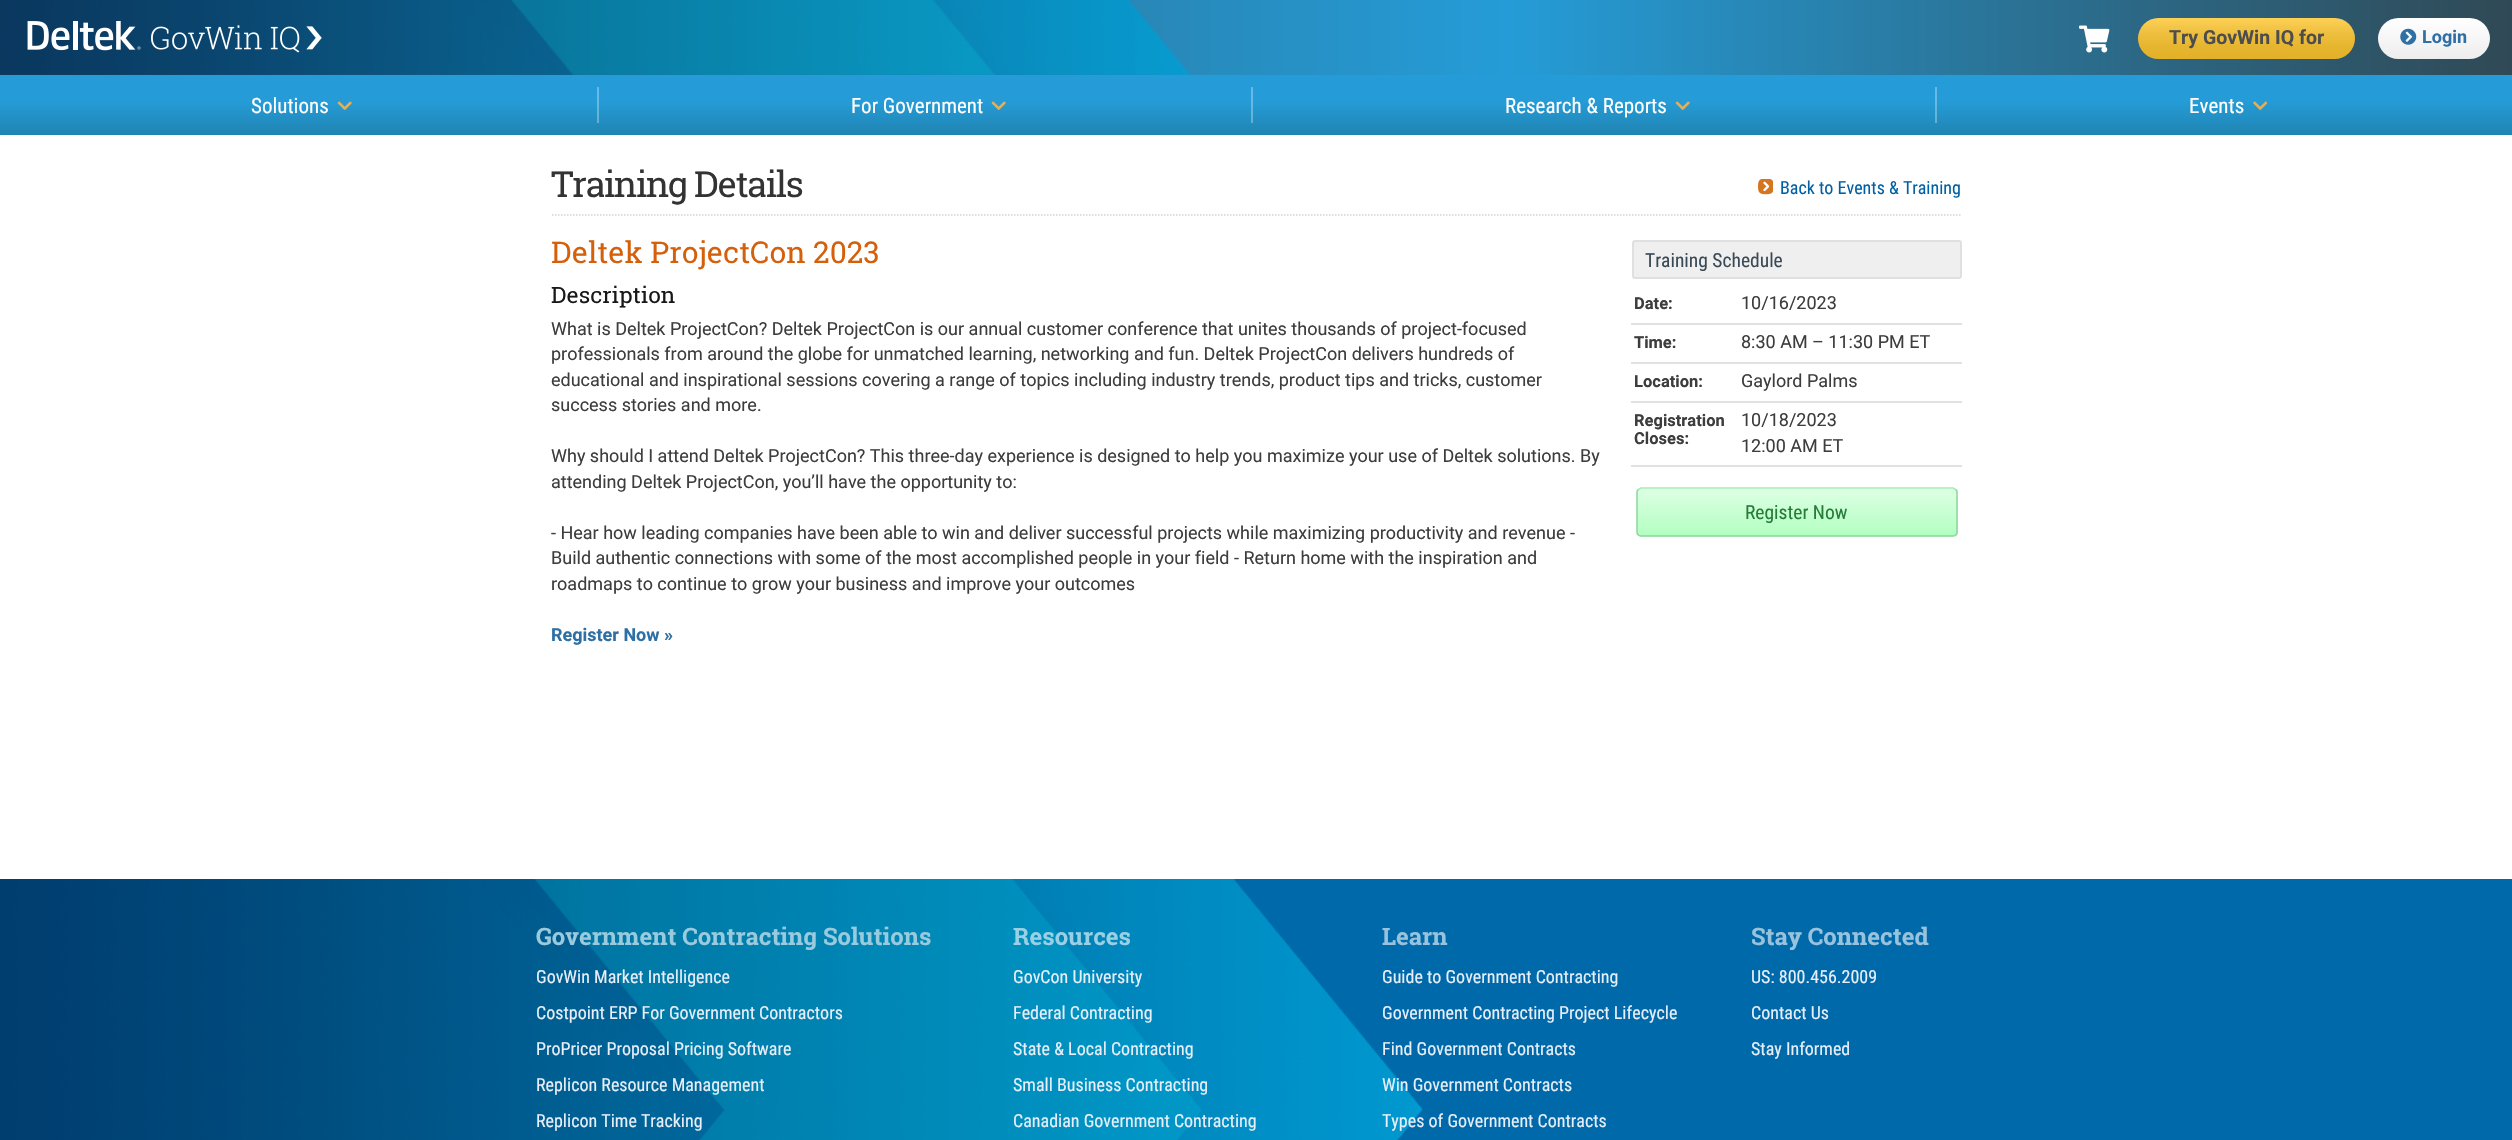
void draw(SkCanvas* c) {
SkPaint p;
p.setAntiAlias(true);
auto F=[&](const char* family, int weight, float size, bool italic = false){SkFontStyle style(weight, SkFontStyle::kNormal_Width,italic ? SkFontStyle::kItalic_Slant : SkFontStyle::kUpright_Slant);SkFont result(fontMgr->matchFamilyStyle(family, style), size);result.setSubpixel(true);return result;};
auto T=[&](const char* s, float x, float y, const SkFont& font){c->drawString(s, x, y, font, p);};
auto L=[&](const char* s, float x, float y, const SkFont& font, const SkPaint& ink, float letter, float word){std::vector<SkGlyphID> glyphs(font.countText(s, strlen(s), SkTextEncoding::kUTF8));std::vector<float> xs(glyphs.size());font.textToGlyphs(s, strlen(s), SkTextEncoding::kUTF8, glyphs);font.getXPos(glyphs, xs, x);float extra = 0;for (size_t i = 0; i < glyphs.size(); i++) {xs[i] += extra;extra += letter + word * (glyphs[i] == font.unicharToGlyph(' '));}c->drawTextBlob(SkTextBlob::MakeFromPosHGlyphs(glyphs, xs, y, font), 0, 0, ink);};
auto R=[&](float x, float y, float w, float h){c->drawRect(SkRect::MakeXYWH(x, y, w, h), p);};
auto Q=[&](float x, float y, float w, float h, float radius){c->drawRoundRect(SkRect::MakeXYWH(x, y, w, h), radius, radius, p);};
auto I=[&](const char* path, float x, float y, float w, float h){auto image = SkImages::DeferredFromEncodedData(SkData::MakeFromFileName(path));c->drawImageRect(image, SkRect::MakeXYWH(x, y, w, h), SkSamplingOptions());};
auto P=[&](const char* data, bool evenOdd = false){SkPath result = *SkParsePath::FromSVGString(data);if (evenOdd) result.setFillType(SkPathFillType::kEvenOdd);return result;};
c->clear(0xffffffff);
{
const SkColor colors[] = {0xff314956,0xff259cd7,0xff304955};
const float stops[] = {0,.6,1};
const SkPoint ends[] = {{0,38}, {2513,37}};
p.setShader(SkGradientShader::MakeLinear(ends, colors, stops, 3, SkTileMode::kClamp));
p.setAlpha(255);
}
R(0,0,2512,75);
I("1.png",0,0,1191,75);
I("2.png",27,21,295,32);
I("3.png",2079,25,31,28);
p.setShader(nullptr);
p.setColor(0xfffec62c);
Q(2138,18,217,41,20.5);
{
const SkColor colors[] = {0x33ffffff,0x1a000000};
const float stops[] = {0,1};
const SkPoint ends[] = {{2246,18}, {2246,59}};
p.setShader(SkGradientShader::MakeLinear(ends, colors, stops, 2, SkTileMode::kClamp));
p.setAlpha(255);
}
Q(2138,18,217,41,20.5);
auto f1 = F("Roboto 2",700,19.5);
p.setShader(nullptr);
p.setColor(0xff4d4d4d);
T("Try GovWin IQ for",2169,44,f1);
{
const SkColor colors[] = {0xffffffff,0xffededed};
const float stops[] = {0,1};
const SkPoint ends[] = {{2434,18}, {2434,59}};
p.setShader(SkGradientShader::MakeLinear(ends, colors, stops, 2, SkTileMode::kClamp));
p.setAlpha(255);
}
Q(2378,18,112,41,20.5);
I("4.png",2400,28,17,17);
auto f2 = F("Roboto 2",700,18);
p.setShader(nullptr);
p.setColor(0xff2e70a5);
T("Login",2422,43,f2);
{
const SkColor colors[] = {0xff259cd7,0xff2084b2};
const float stops[] = {.43,1};
const SkPoint ends[] = {{1256,75}, {1256,135}};
p.setShader(SkGradientShader::MakeLinear(ends, colors, stops, 2, SkTileMode::kClamp));
p.setAlpha(255);
}
R(0,75,2512,60);
{
const SkColor colors[] = {0xff66bae3,0xff63a9c9};
const float stops[] = {.43,1};
const SkPoint ends[] = {{1256,75}, {1256,135}};
p.setShader(SkGradientShader::MakeLinear(ends, colors, stops, 2, SkTileMode::kClamp));
p.setAlpha(255);
}
R(1935,87,2,36);
R(1251,87,2,36);
R(597,87,2,36);
auto f3 = F("Roboto Condensed",400,21);
p.setShader(nullptr);
p.setColor(0xffffffff);
T("Solutions",251,113,f3);
I("5.png",337,101,15,9);
T("For Government",851,113,f3);
I("5.png",991,101,15,9);
T("Research & Reports",1505,113,f3);
I("5.png",1675,101,15,9);
T("Events",2189,113,f3);
I("6.png",2253,101,15,9);
p.setStroke(true);
p.setStrokeWidth(1.5);
p.setColor(0xffd2d2d2);
p.setPathEffect(SkDashPathEffect::Make({{1.5f,1.5f}}, 0));
c->drawPath(P("M552 215h1410"),p);
p.setPathEffect(nullptr);
auto f4 = F("Roboto Slab",400,36);
p.setStroke(false);
p.setColor(0xff333333);
L("Training Details",551,197,f4,p,-1.5,0);
I("7.png",1758,179,15,16);
auto f5 = F("Roboto Condensed",400,18);
p.setColor(0xff0060a6);
T("Back to Events & Training",1780,194,f5);
auto f6 = F("Roboto Slab",400,30);
p.setColor(0xffd5600b);
T("Deltek ProjectCon 2023",551,263,f6);
auto f7 = F("Roboto Slab",400,22.5);
p.setColor(0xff181818);
T("Description",551,303,f7);
auto f8 = F("Roboto",400,18);
p.setColor(0xff3d3d3d);
T("What is Deltek ProjectCon? Deltek ProjectCon is our annual customer conference that unites thousands of project-focused",551,335,f8);
T("professionals from around the globe for unmatched learning, networking and fun. Deltek ProjectCon delivers hundreds of",551,360,f8);
T("educational and inspirational sessions covering a range of topics including industry trends, product tips and tricks, customer",551,386,f8);
T("success stories and more.",551,411,f8);
T("Why should I attend Deltek ProjectCon? This three-day experience is designed to help you maximize your use of Deltek solutions. By",551,462,f8);
T("attending Deltek ProjectCon, you’ll have the opportunity to:",551,488,f8);
T("- Hear how leading companies have been able to win and deliver successful projects while maximizing productivity and revenue -",551,539,f8);
T("Build authentic connections with some of the most accomplished people in your field - Return home with the inspiration and",551,564,f8);
T("roadmaps to continue to grow your business and improve your outcomes",551,590,f8);
auto f9 = F("Roboto",700,18);
p.setColor(0xff2e70a5);
T("Register Now »",551,641,f9);
p.setColor(0xffefefef);
c->drawRoundRect(SkRect::MakeXYWH(1633,241,328,37),2,2,p);
p.setStroke(true);
p.setStrokeWidth(2);
p.setColor(0xffe0e0e0);
c->drawRoundRect(SkRect::MakeXYWH(1633,241,328,37),2,2,p);
auto f10 = F("Roboto Condensed",400,19.5);
p.setStroke(false);
p.setColor(0xff394a56);
T("Training Schedule",1645,267,f10);
p.setColor(0xffe1e1e1);
R(1631,323,331,2);
auto f11 = F("Roboto",700,16.5);
p.setColor(0xff3d3d3d);
T("Date:",1634,309,f11);
T("10/16/2023",1741,309,f8);
p.setColor(0xffe1e1e1);
R(1631,362,331,2);
p.setColor(0xff3d3d3d);
T("Time:",1634,348,f11);
T("8:30 AM – 11:30 PM ET",1741,348,f8);
p.setColor(0xffe1e1e1);
R(1631,401,331,2);
p.setColor(0xff3d3d3d);
T("Location:",1634,387,f11);
T("Gaylord Palms",1741,387,f8);
p.setColor(0xffe1e1e1);
R(1631,465,331,2);
p.setColor(0xff3d3d3d);
T("Registration",1634,426,f11);
T("Closes:",1634,444,f11);
T("10/18/2023",1741,426,f8);
T("12:00 AM ET",1741,452,f8);
c->save();
c->clipPath(P("M1642 488h311c3 0 5 2 5 5v39c0 3-2 5-5 5h-311c-3 0-5-2-5-5v-39c0-3 2-5 5-5z"),true);
{
const SkColor colors[] = {0xffddffe3,0xffb2ffc1};
const float stops[] = {0,1};
const SkPoint ends[] = {{1797,489}, {1797,536}};
p.setShader(SkGradientShader::MakeLinear(ends, colors, stops, 2, SkTileMode::kClamp));
p.setAlpha(255);
}
R(1637,489,321,47);
{
const SkColor colors[] = {0xffddffe3,0xffb2ffc1};
const float stops[] = {0,1};
const SkPoint ends[] = {{1797,536}, {1797,582}};
p.setShader(SkGradientShader::MakeLinear(ends, colors, stops, 2, SkTileMode::kClamp));
p.setAlpha(255);
}
R(1637,536,321,1);
c->restore();
p.setStroke(true);
p.setStrokeWidth(1.5);
p.setShader(nullptr);
p.setColor(0xff9ef0b0);
c->drawPath(P("M1638.5 489.5l2.5-1.5h312l2.5 1.5"),p);
p.setColor(0xff8dd69d);
c->drawPath(P("M1955.5 489.5c1 .5 1.5 1.5 1.5 2.5v40.5c0 1-.5 2-1.5 2.5c-.5 1-1.5 1-2.5 1h-312c-1 0-2 0-2.5-1c-1-.5-1.5-1.5-1.5-2.5v-40.5c0-1 .5-2 1.5-2.5"),p);
p.setStroke(false);
p.setColor(0xff257d38);
T("Register Now",1745,519,f10);
p.setColor(0xff0069aa);
R(0,879,2512,261);
I("8.png",0,879,1423,261);
auto f12 = F("Roboto Slab",700,24);
p.setColor(0xff99cadd);
T("Government Contracting Solutions",536,945,f12);
p.setColor(0xff99d0e4);
T("Resources",1013,945,f12);
p.setColor(0xff99c3dd);
T("Learn",1382,945,f12);
T("Stay Connected",1751,945,f12);
p.setColor(0xffe8eff9);
T("GovWin Market Intelligence",536,983,f5);
T("Costpoint ERP For Government Contractors",536,1019,f5);
T("ProPricer Proposal Pricing Software",536,1055,f5);
T("Replicon Resource Management",536,1091,f5);
T("Replicon Time Tracking",536,1127,f5);
T("GovCon University",1013,983,f5);
T("Federal Contracting",1013,1019,f5);
T("State & Local Contracting",1013,1055,f5);
T("Small Business Contracting",1013,1091,f5);
T("Canadian Government Contracting",1013,1127,f5);
T("Guide to Government Contracting",1382,983,f5);
T("Government Contracting Project Lifecycle",1382,1019,f5);
T("Find Government Contracts",1382,1055,f5);
T("Win Government Contracts",1382,1091,f5);
T("Types of Government Contracts",1382,1127,f5);
T("US: 800.456.2009",1751,983,f5);
T("Contact Us",1751,1019,f5);
T("Stay Informed",1751,1055,f5);
}
